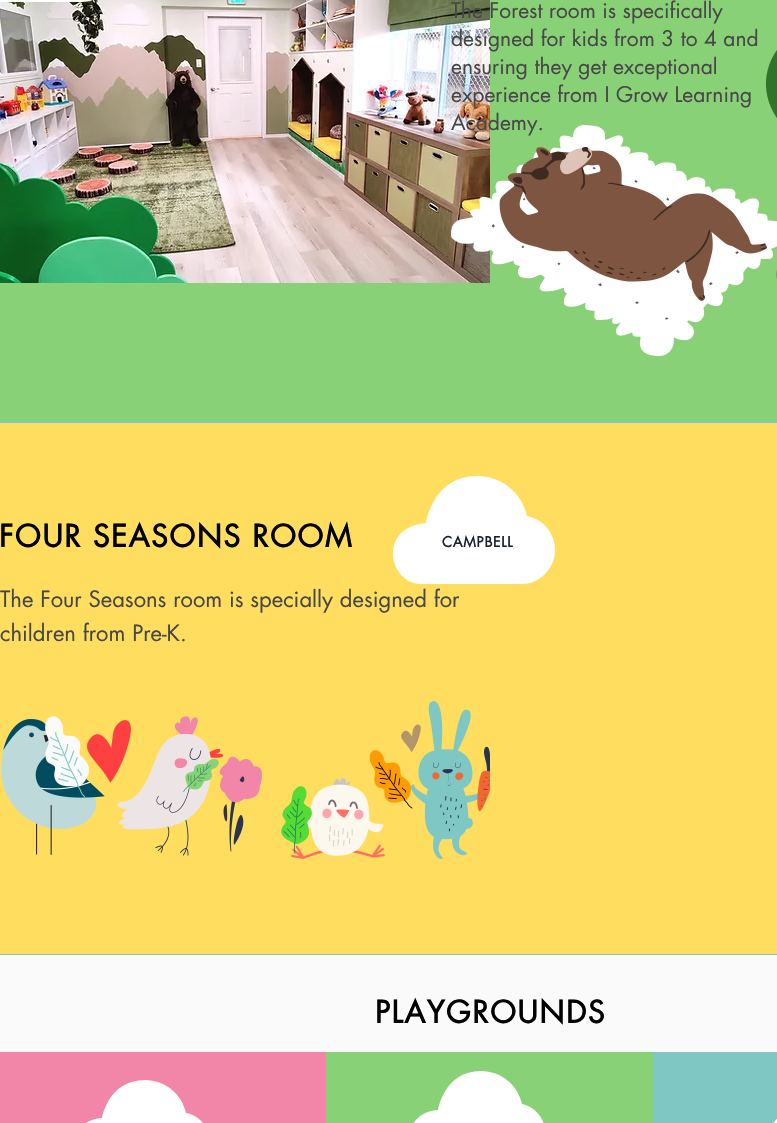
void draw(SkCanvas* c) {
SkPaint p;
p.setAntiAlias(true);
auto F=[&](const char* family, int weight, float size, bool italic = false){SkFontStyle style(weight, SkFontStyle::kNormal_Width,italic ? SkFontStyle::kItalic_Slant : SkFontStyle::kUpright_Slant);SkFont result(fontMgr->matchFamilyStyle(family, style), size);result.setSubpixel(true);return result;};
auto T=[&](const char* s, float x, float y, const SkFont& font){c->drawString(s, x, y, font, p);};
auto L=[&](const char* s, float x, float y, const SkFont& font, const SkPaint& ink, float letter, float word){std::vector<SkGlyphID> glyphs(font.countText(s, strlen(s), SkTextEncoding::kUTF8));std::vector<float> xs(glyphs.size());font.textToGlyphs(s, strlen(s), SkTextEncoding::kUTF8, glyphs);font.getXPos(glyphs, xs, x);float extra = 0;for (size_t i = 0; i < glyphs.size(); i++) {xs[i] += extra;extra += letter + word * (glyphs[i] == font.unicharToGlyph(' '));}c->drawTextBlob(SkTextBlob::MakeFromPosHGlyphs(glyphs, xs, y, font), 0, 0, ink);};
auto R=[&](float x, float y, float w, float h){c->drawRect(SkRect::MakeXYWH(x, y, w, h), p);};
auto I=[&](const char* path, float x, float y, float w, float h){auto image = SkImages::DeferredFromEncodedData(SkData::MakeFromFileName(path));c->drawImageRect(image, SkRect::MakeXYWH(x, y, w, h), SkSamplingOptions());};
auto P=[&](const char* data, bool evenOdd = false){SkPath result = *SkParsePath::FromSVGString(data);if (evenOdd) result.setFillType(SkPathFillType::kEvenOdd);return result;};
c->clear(0xff7ec7c2);
I("1.png",0,0,490,283);
p.setColor(0xffffffff);
c->drawPath(P("M87-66c16 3 28 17 28 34c0 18-15 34-33 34h-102c-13 0-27-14-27-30c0-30 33-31 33-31c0 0 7-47 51-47c25 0 45 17 50 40z"),p);
p.setColor(0xff89d177);
R(0,283,490,138);
R(490,0,287,421);
auto f1 = F("futura",400,21);
p.setColor(0xff474747);
T("The Forest room is specifically",451,18,f1);
T("designed for kids from 3 to 4 and",451,46,f1);
T("ensuring they get exceptional",451,74,f1);
T("experience from I Grow Learning",451,102,f1);
I("3.png",451,125,326,231);
T("Academy.",451,130,f1);
I("2.png",765,50,12,68);
I("4.png",776,270,1,9);
p.setColor(0xffffde5f);
R(0,423,777,531);
auto f2 = F("futura",700,30);
p.setColor(0xff000000);
L("FOUR SEASONS ROOM",-1,547,f2,p,1.5,0);
auto f3 = F("futura",400,22);
p.setColor(0xff474747);
T("The Four Seasons room is specially designed for",0,607,f3);
T("children from Pre-K.",0,641,f3);
I("6.png",1,719,104,136);
I("5.png",45,716,45,82);
I("7.png",87,716,175,140);
I("8.png",183,759,36,33);
I("9.png",291,778,94,81);
I("11.png",401,701,89,158);
I("10.png",369,750,44,59);
I("12.png",281,786,31,68);
p.setColor(0xffffffff);
c->drawPath(P("M527 516c16 3 28 17 28 34c0 18-15 34-33 34h-102c-14 0-27-14-27-30c0-30 33-31 33-31c0 0 7-47 51-47c25 0 45 17 50 40z"),p);
auto f4 = F("futura",700,14);
p.setColor(0xff1b222f);
L("CAMPBELL",442,547,f4,p,.75,0);
p.setColor(0xfffafafa);
R(0,955,777,97);
p.setColor(0xff000000);
L("PLAYGROUNDS",375,1023,f2,p,1.5,0);
p.setColor(0xfff286a9);
R(0,1052,326,71);
p.setColor(0xffffffff);
c->drawPath(P("M186 1113c13 2 23 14 23 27c0 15-12 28-27 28h-85c-11 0-22-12-22-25c0-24 27-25 27-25c0 0 6-38 43-38c20 0 37 14 41 33z"),p);
p.setColor(0xff89d177);
R(326,1052,327,71);
p.setColor(0xffffffff);
c->drawPath(P("M522 1104c13 3 23 14 23 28c0 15-12 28-27 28h-85c-11 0-22-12-22-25c0-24 27-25 27-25c0 0 6-39 43-39c20 0 37 14 41 33z"),p);
I("13.png",773,1119,4,4);
}
